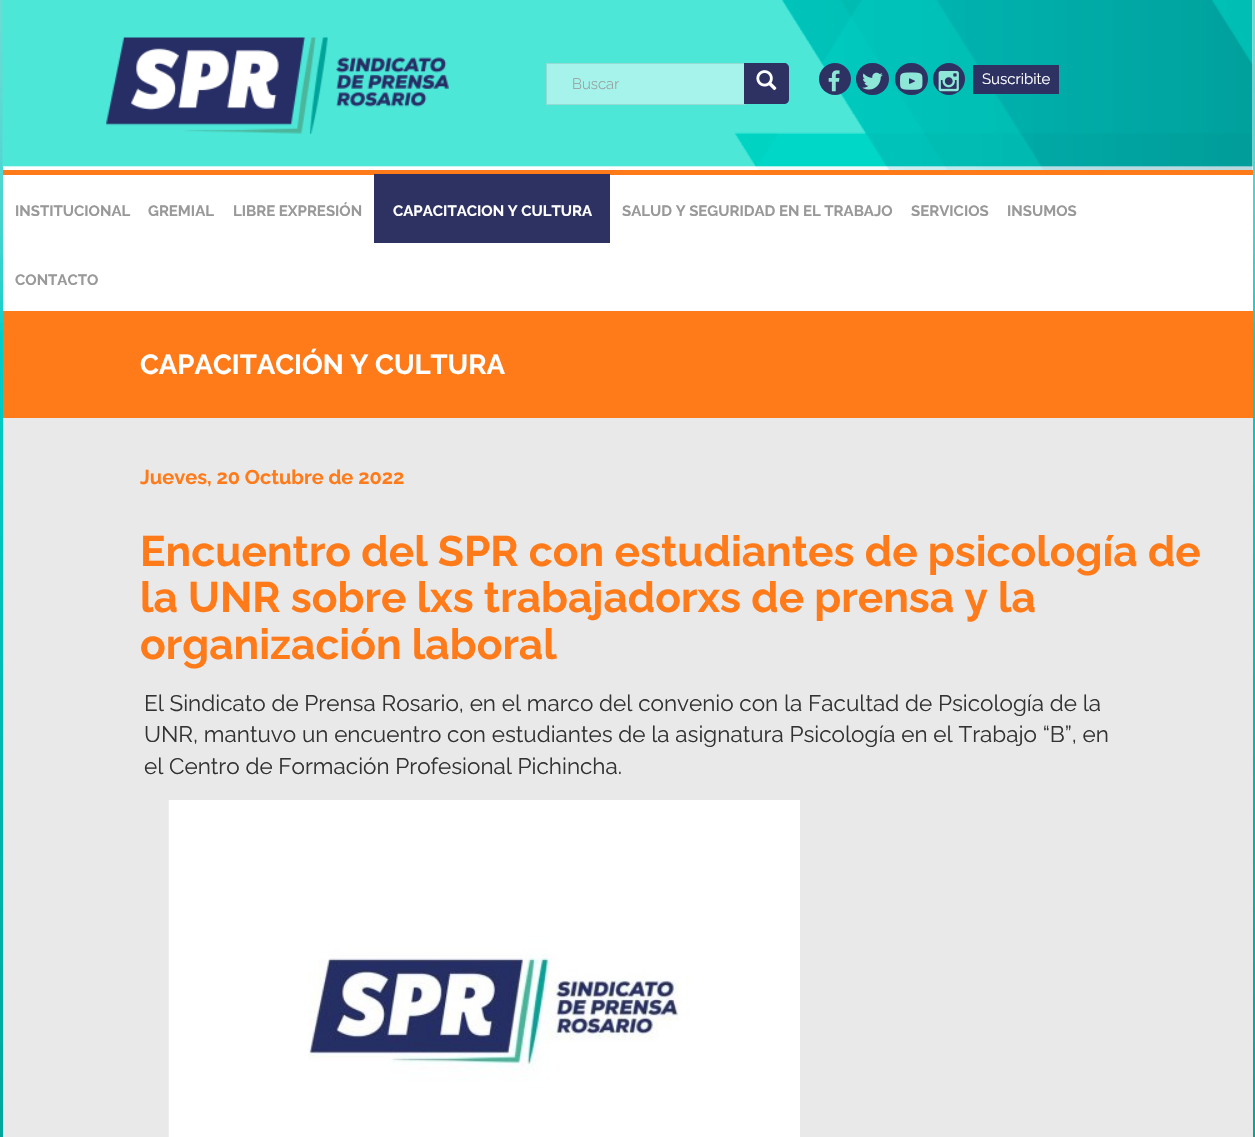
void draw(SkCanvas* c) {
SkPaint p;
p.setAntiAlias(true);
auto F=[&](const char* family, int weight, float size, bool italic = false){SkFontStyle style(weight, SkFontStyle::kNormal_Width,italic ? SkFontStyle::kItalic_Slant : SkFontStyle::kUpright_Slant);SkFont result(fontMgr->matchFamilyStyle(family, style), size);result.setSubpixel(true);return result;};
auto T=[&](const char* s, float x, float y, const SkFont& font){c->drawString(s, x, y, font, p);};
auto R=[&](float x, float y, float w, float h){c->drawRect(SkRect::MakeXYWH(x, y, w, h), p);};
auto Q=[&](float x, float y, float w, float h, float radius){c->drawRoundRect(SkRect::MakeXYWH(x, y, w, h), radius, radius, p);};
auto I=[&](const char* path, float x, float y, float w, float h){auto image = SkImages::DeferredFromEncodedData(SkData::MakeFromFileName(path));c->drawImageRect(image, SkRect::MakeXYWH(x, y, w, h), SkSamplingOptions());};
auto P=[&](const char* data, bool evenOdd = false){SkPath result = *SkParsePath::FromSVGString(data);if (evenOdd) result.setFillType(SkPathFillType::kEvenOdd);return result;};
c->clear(0xff00a499);
I("1.png",0,0,1255,1133);
p.setColor(0xffffffff);
R(3,0,1250,311);
I("2.png",2,0,1251,170);
p.setColor(0xffff7b1a);
R(3,170,1250,5);
I("3.png",106,37,343,97);
p.setColor(0xffa6f3ec);
c->drawRect(SkRect::MakeXYWH(546.5,63.5,198,41),p);
p.setStroke(true);
p.setStrokeWidth(1);
p.setColor(0xff95dbd4);
c->drawRect(SkRect::MakeXYWH(546.5,63.5,198,41),p);
auto f1 = F("Raleway",300,15);
p.setStroke(false);
p.setColor(0xff999999);
T("Buscar",572,89,f1);
p.setColor(0xff2d3263);
c->drawPath(P("M744 63h40c3 0 5 2 5 5v31c0 3-2 5-5 5h-40z"),p);
I("4.png",756,70,21,21);
c->drawCircle(835,79,16,p);
I("5.png",828,70,12,22);
Q(856,63,33,32,16);
I("6.png",862,72,21,18);
Q(895,63,33,32,16);
I("7.png",900,72,23,18);
c->drawCircle(949,79,16,p);
I("8.png",938,71,21,21);
R(973,65,86,29);
auto f2 = F("Raleway",400,15);
p.setColor(0xffffffff);
T("Suscribite",982,84,f2);
auto f3 = F("Raleway",700,15);
p.setColor(0xff999999);
T("INSTITUCIONAL",15,216,f3);
T("GREMIAL",148,216,f3);
T("LIBRE EXPRESIÓN",233,216,f3);
p.setColor(0xff2d3263);
R(374,174,236,69);
p.setColor(0xffffffff);
T("CAPACITACION Y CULTURA",393,216,f3);
p.setColor(0xff999999);
T("SALUD Y SEGURIDAD EN EL TRABAJO",622,216,f3);
T("SERVICIOS",911,216,f3);
T("INSUMOS",1007,216,f3);
T("CONTACTO",15,285,f3);
p.setColor(0xffff7b1a);
R(3,311,1250,107);
auto f4 = F("Raleway",700,27.5);
p.setColor(0xffffffff);
T("CAPACITACIÓN Y CULTURA",140,374,f4);
p.setColor(0xffe9e9ea);
R(3,418,1250,719);
auto f5 = F("Raleway",700,20);
p.setColor(0xffff7b1a);
T("Jueves, 20 Octubre de 2022",140,484,f5);
auto f6 = F("Raleway",700,42.5);
T("Encuentro del SPR con estudiantes de psicología de",140,566,f6);
T("la UNR sobre lxs trabajadorxs de prensa y la",140,612,f6);
T("organización laboral",140,659,f6);
auto f7 = F("Raleway",400,22.5);
p.setColor(0xff333333);
T("El Sindicato de Prensa Rosario, en el marco del convenio con la Facultad de Psicología de la",144,711,f7);
T("UNR, mantuvo un encuentro con estudiantes de la asignatura Psicología en el Trabajo “B”, en",144,742,f7);
T("el Centro de Formación Profesional Pichincha.",144,774,f7);
I("9.png",168,800,632,337);
}
